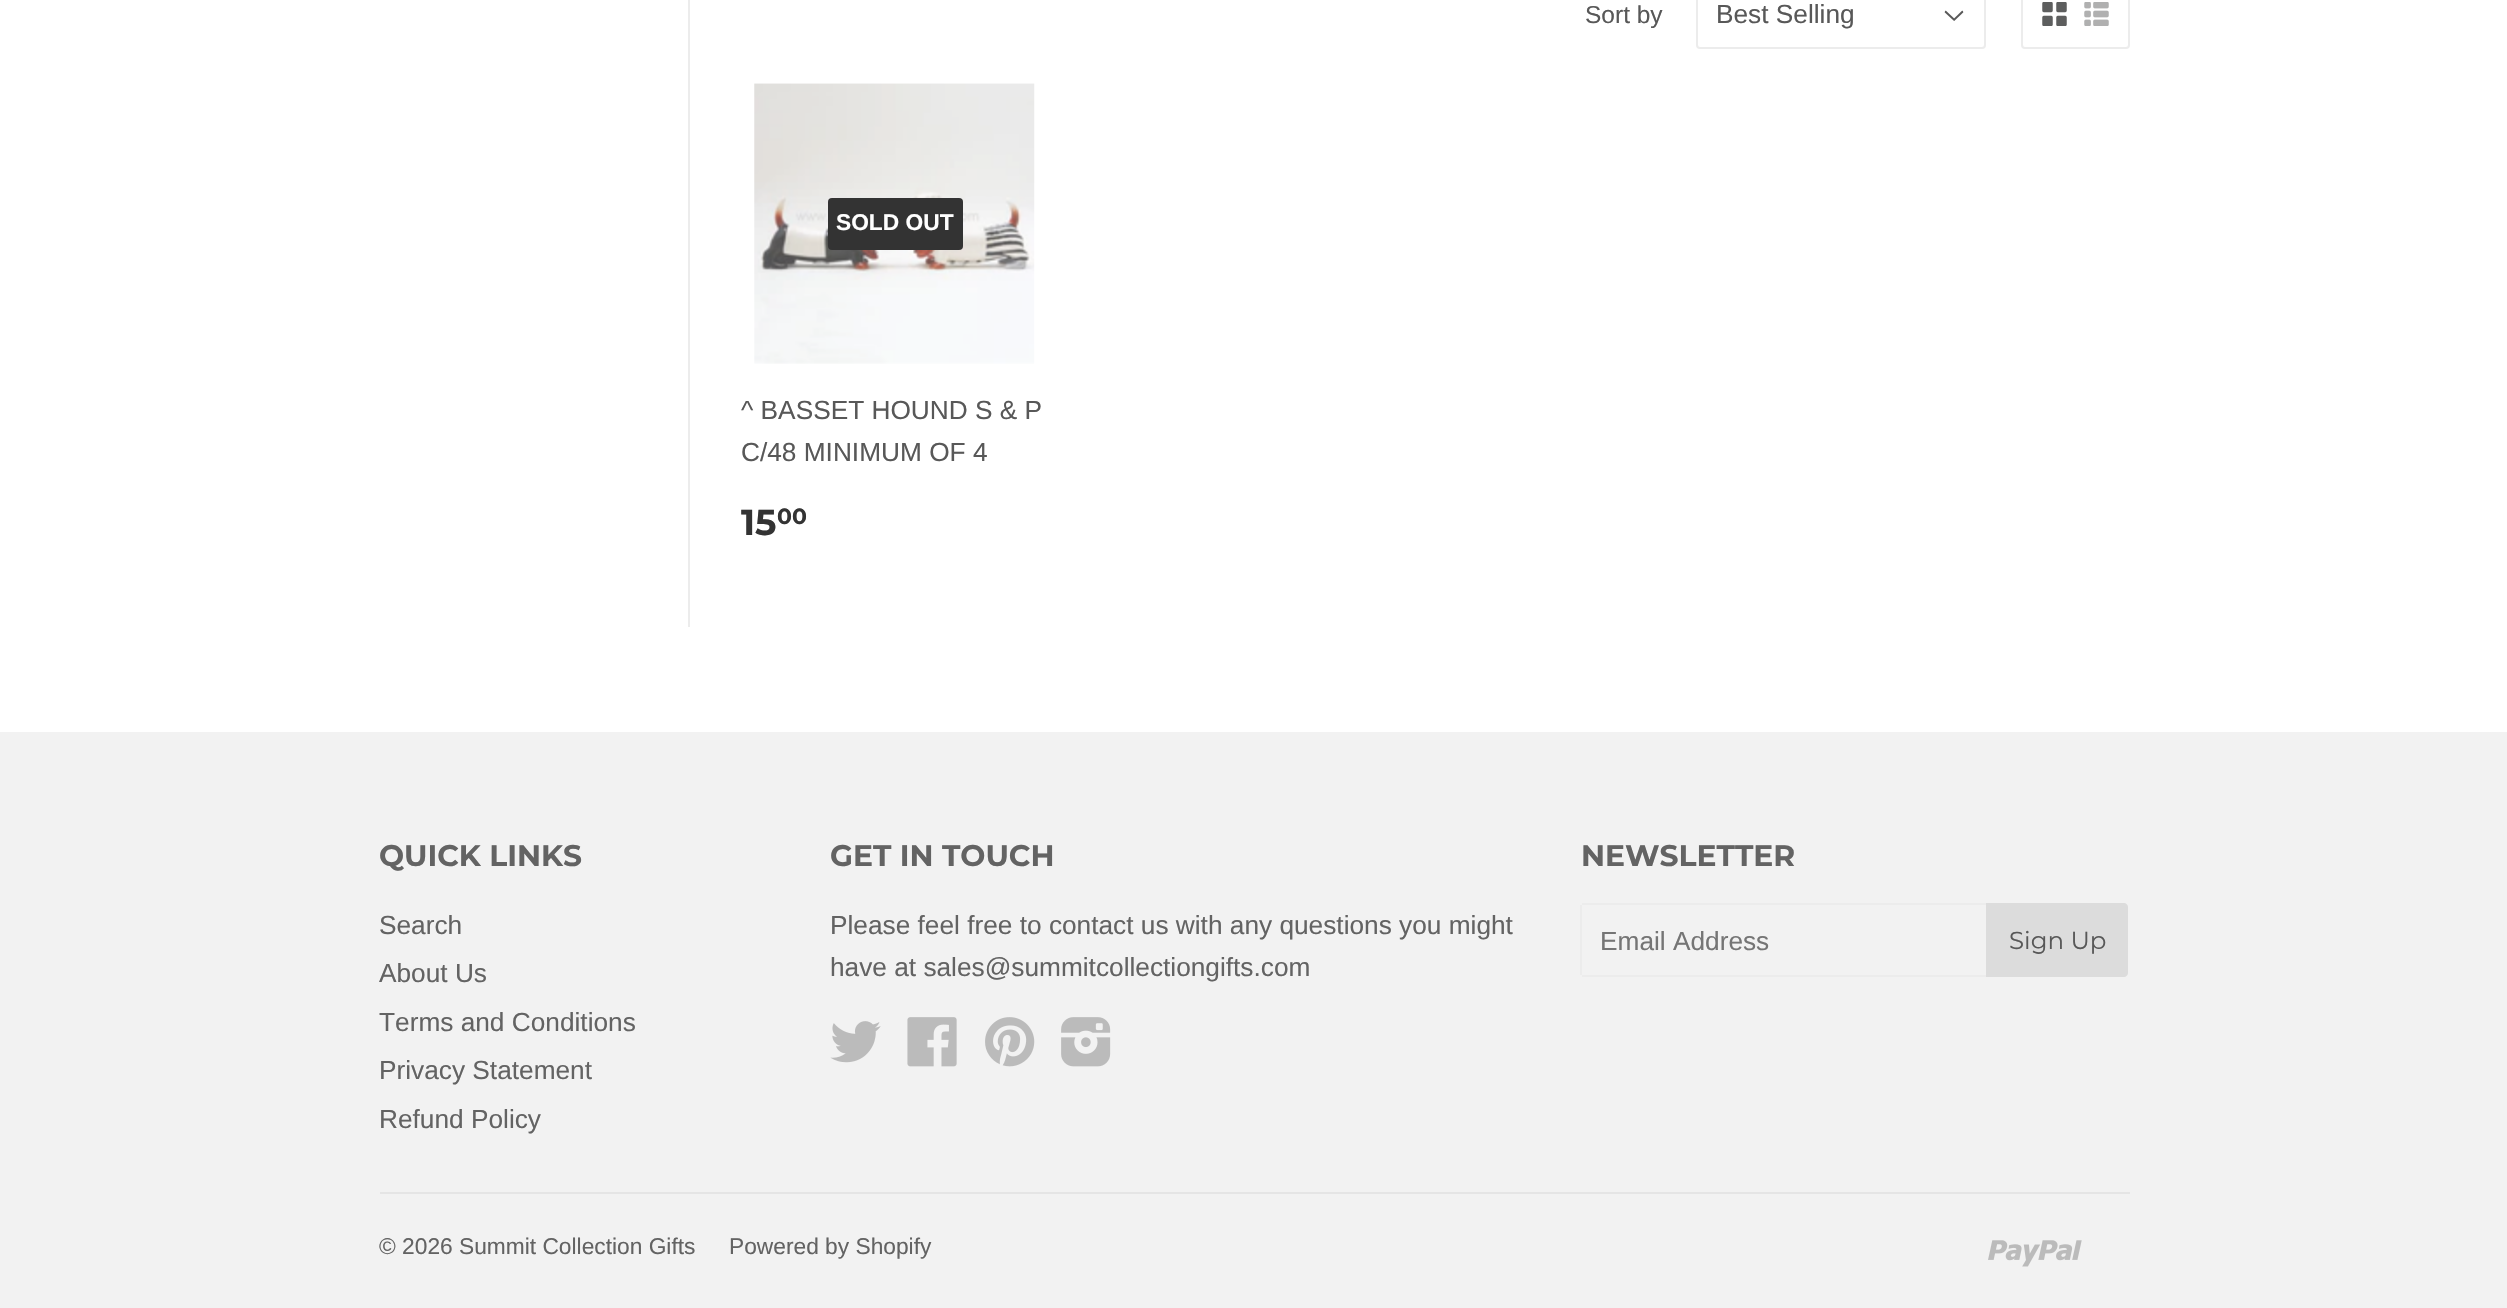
void draw(SkCanvas* c) {
SkPaint p;
p.setAntiAlias(true);
auto F=[&](const char* family, int weight, float size, bool italic = false){SkFontStyle style(weight, SkFontStyle::kNormal_Width,italic ? SkFontStyle::kItalic_Slant : SkFontStyle::kUpright_Slant);SkFont result(fontMgr->matchFamilyStyle(family, style), size);result.setSubpixel(true);return result;};
auto T=[&](const char* s, float x, float y, const SkFont& font){c->drawString(s, x, y, font, p);};
auto R=[&](float x, float y, float w, float h){c->drawRect(SkRect::MakeXYWH(x, y, w, h), p);};
auto Q=[&](float x, float y, float w, float h, float radius){c->drawRoundRect(SkRect::MakeXYWH(x, y, w, h), radius, radius, p);};
auto I=[&](const char* path, float x, float y, float w, float h){auto image = SkImages::DeferredFromEncodedData(SkData::MakeFromFileName(path));c->drawImageRect(image, SkRect::MakeXYWH(x, y, w, h), SkSamplingOptions());};
auto P=[&](const char* data, bool evenOdd = false){SkPath result = *SkParsePath::FromSVGString(data);if (evenOdd) result.setFillType(SkPathFillType::kEvenOdd);return result;};
c->clear(0xffffffff);
p.setColor(0xffececec);
R(688,0,2,627);
auto f1 = F("Liberation Sans",400,24.5);
p.setColor(0xff585858);
T("Sort by",1585,23,f1);
I("1.png",1944,10,20,11);
p.setStroke(true);
p.setStrokeWidth(2);
p.setColor(0xffececec);
c->drawRoundRect(SkRect::MakeXYWH(1697,-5,288,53),3,3,p);
auto f2 = F("Liberation Sans",400,26.25);
p.setStroke(false);
p.setColor(0xff585858);
T("Best Selling",1716,23,f2);
p.setStroke(true);
p.setColor(0xffececec);
c->drawRoundRect(SkRect::MakeXYWH(2022,-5,107,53),3,3,p);
I("2.png",2042,2,25,24);
I("3.png",2084,2,25,24);
I("4.png",754,83,281,281);
p.setStroke(false);
p.setColor(0xff333333);
Q(828,198,135,52,4);
auto f3 = F("Liberation Sans",700,22.75);
p.setColor(0xffffffff);
T("SOLD OUT",836,230,f3);
p.setColor(0xff585858);
T("^ BASSET HOUND S & P",741,419,f2);
T("C/48 MINIMUM OF 4",741,461,f2);
auto f4 = F("Montserrat",100,36);
p.setColor(0xff333333);
T("15",741,535,f4);
auto f5 = F("Montserrat",100,22);
T("00",777,524,f5);
p.setColor(0xfff2f2f2);
R(0,732,2507,576);
auto f6 = F("Montserrat",100,29.75);
p.setColor(0xff636363);
T("QUICK LINKS",379,866,f6);
T("Search",379,934,f2);
T("About Us",379,982,f2);
T("Terms and Conditions",379,1031,f2);
T("Privacy Statement",379,1079,f2);
T("Refund Policy",379,1128,f2);
T("GET IN TOUCH",830,866,f6);
T("Please feel free to contact us with any questions you might",830,934,f2);
T("have at sales@summitcollectiongifts.com",830,976,f2);
I("5.png",830,1021,51,42);
I("6.png",907,1017,50,50);
I("7.png",985,1017,50,50);
I("8.png",1061,1017,50,50);
T("NEWSLETTER",1581,866,f6);
p.setColor(0xffececec);
R(1582,903,404,2);
R(1582,975,404,2);
R(1580,905,2,70);
p.setColor(0xff757575);
T("Email Address",1600,950,f2);
p.setColor(0xffdcdcdc);
c->drawPath(P("M1986 903h138c2 0 4 2 4 4v66c0 2-2 4-4 4h-138z"),p);
auto f7 = F("Montserrat",400,24.5);
p.setColor(0xff585858);
T("Sign Up",2009,949,f7);
p.setColor(0xffe5e5e5);
R(380,1192,1750,2);
auto f8 = F("Liberation Sans",400,22.75);
p.setColor(0xff636363);
T("© 2026 Summit Collection Gifts",379,1254,f8);
T("Powered by Shopify",729,1254,f8);
I("9.png",1988,1240,94,27);
}
